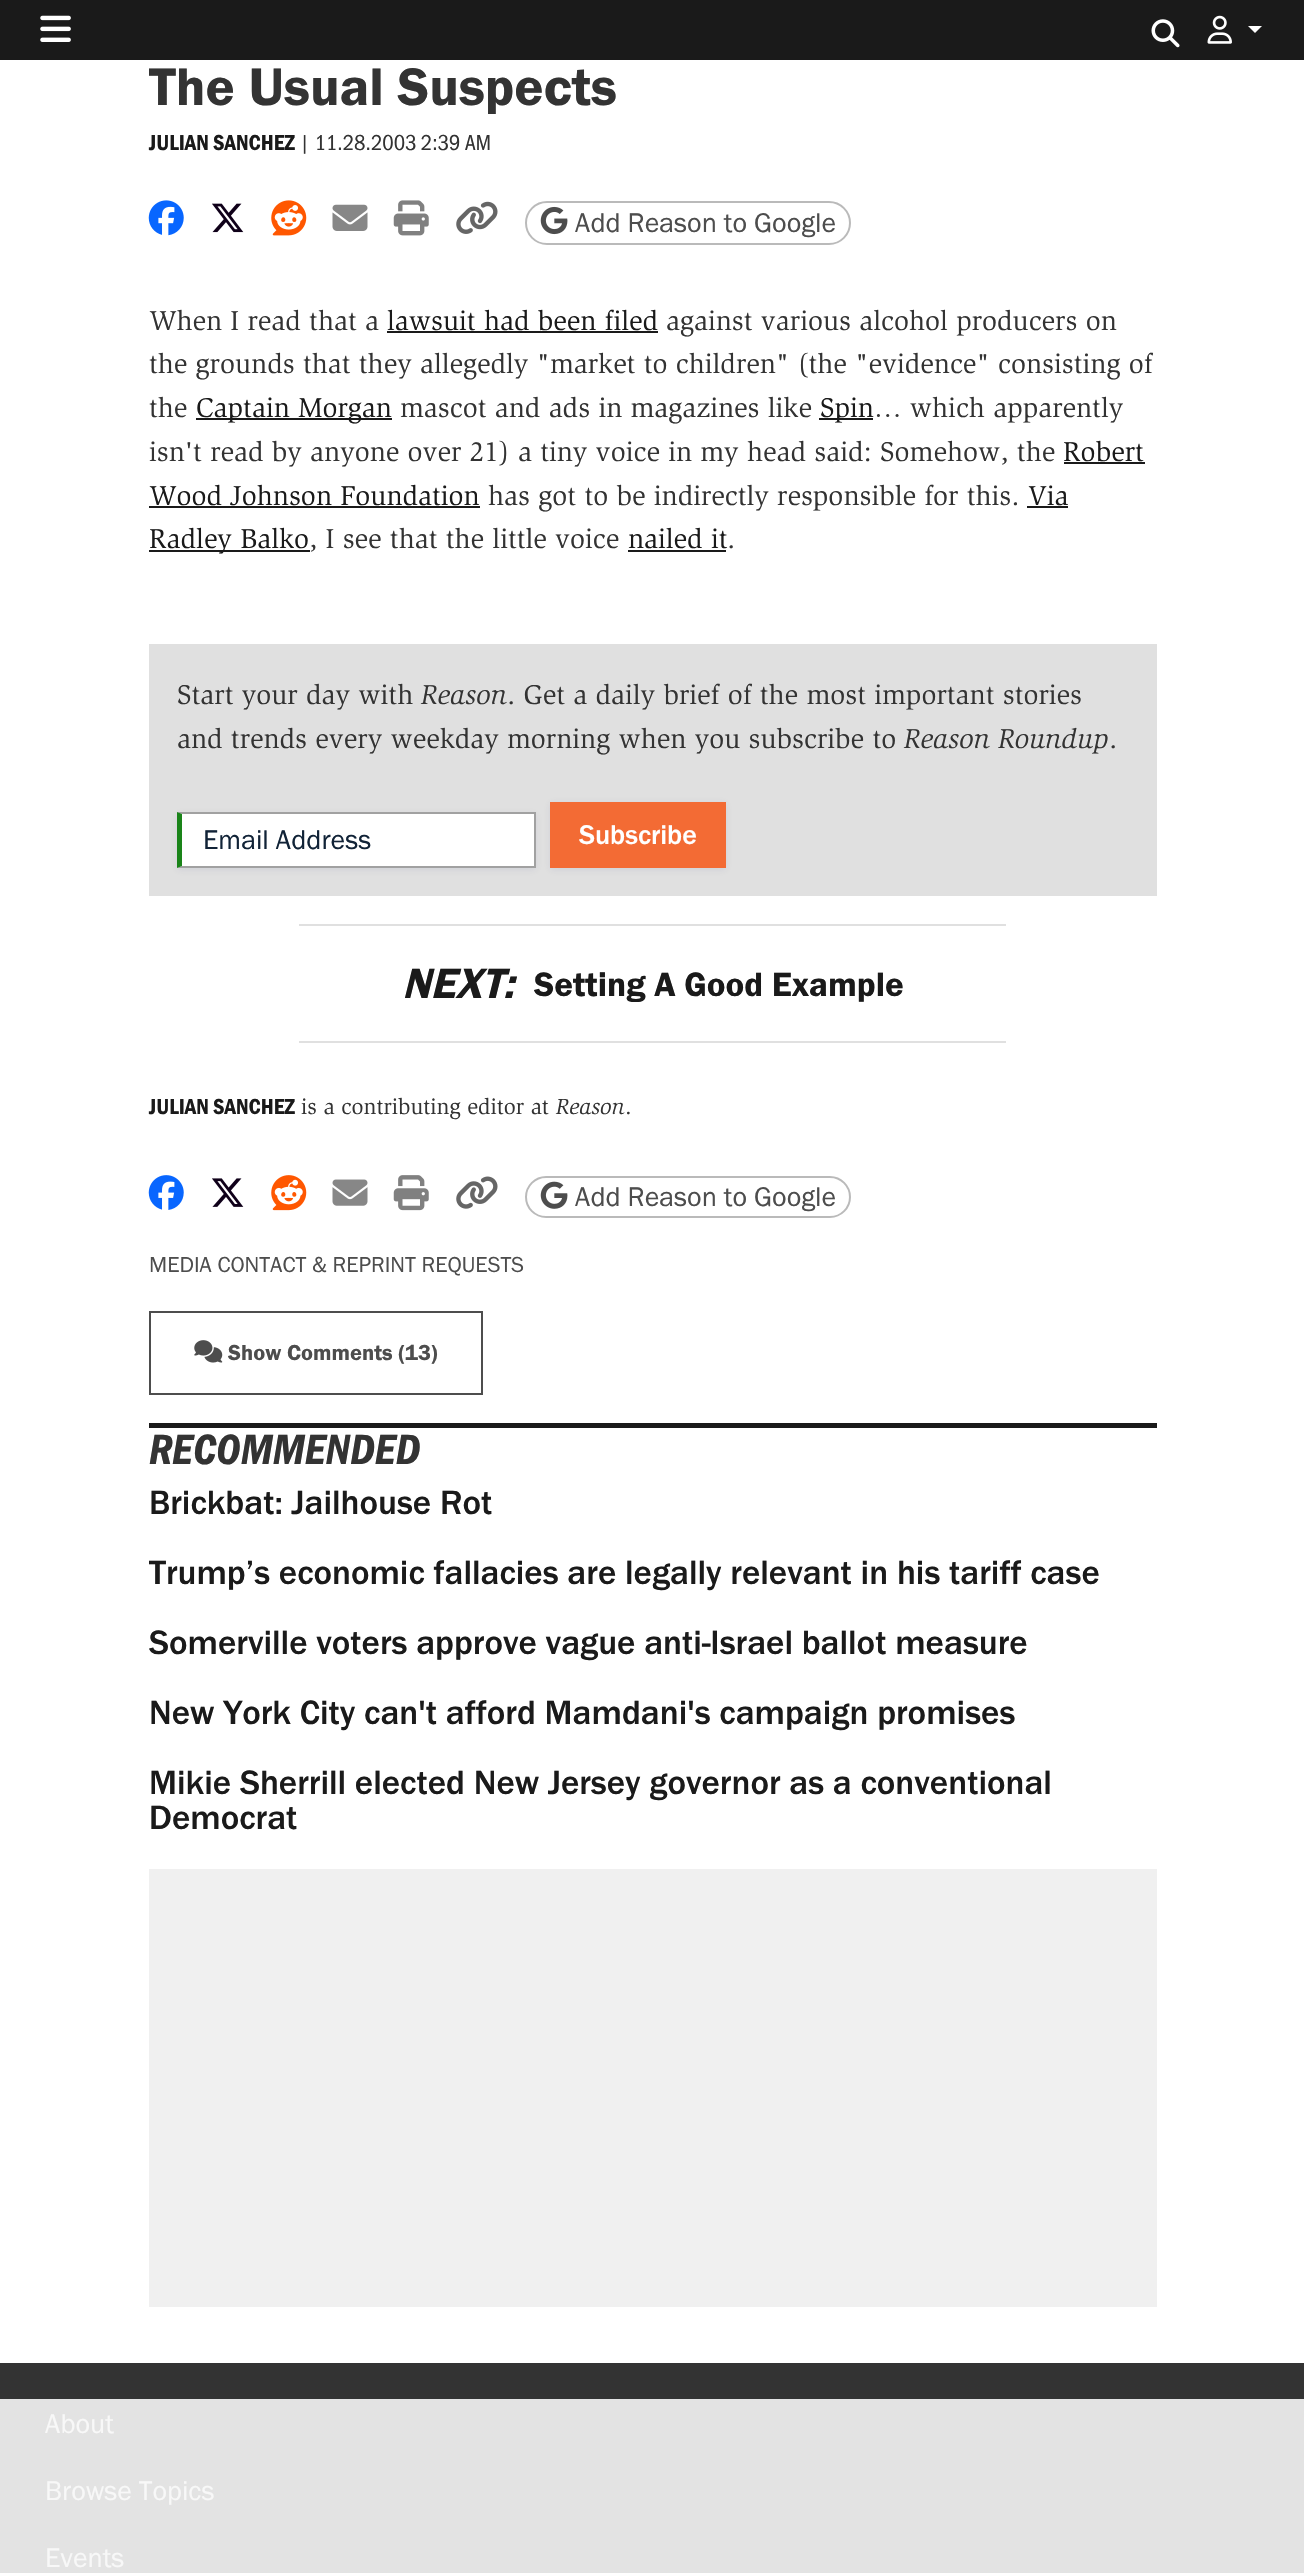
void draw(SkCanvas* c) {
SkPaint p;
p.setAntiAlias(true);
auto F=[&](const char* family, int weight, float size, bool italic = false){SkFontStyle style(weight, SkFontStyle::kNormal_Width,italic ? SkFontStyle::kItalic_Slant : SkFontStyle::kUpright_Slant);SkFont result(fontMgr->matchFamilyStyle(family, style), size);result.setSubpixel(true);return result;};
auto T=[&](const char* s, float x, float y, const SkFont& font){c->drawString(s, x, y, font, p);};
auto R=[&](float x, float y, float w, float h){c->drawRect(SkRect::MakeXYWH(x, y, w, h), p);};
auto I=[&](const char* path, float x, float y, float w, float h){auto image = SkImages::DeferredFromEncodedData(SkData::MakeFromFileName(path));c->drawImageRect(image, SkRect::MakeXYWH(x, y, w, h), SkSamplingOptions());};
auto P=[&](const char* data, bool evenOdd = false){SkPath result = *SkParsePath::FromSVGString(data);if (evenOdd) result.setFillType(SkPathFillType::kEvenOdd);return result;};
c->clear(0xffffffff);
p.setColor(0xff1a1a1a);
R(0,0,1304,60);
I("1.png",40,15,31,27);
I("2.png",1151,19,29,29);
I("3.png",1207,15,25,29);
p.setColor(0xffffffff);
c->drawPath(P("M1248 26h14l-7 7z"),p);
auto f1 = F("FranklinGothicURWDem",400,54.75);
p.setColor(0xff333333);
T("The Usual Suspects",149,105,f1);
auto f2 = F("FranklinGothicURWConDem",400,22.4);
p.setColor(0xff1a1a1a);
T("JULIAN SANCHEZ",149,150,f2);
auto f3 = F("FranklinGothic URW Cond",400,22.4);
p.setColor(0xff333333);
T("| 11.28.2003 2:39 AM",299,150,f3);
I("4.png",148,200,36,36);
I("5.png",212,203,32,30);
I("6.png",271,200,36,36);
I("7.png",332,204,36,27);
I("8.png",393,200,36,36);
I("9.png",456,201,42,33);
p.setStroke(true);
p.setStrokeWidth(2);
p.setColor(0xffbababa);
c->drawRoundRect(SkRect::MakeXYWH(526,202,324,42),21,21,p);
I("10.png",540,206,28,29);
auto f4 = F("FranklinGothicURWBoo",400,28);
p.setStroke(false);
p.setColor(0xff4d4d4d);
T("Add Reason to Google",575,232,f4);
auto f5 = F("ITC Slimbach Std",400,28);
p.setColor(0xff333333);
T("When I read that a",149,330,f5);
p.setColor(0xff1a1a1a);
T("lawsuit had been filed",387,330,f5);
R(387,331,271,2);
p.setColor(0xff333333);
T("against various alcohol producers on",666,330,f5);
T("the grounds that they allegedly \"market to children\" (the \"evidence\" consisting of",149,373,f5);
T("the",149,417,f5);
p.setColor(0xff1a1a1a);
R(196,418,196,2);
T("Captain Morgan",196,417,f5);
p.setColor(0xff333333);
T("mascot and ads in magazines like",400,417,f5);
p.setColor(0xff1a1a1a);
R(819,418,54,2);
T("Spin",820,417,f5);
p.setColor(0xff333333);
T("… which apparently",874,417,f5);
T("isn't read by anyone over 21) a tiny voice in my head said: Somehow, the",149,461,f5);
p.setColor(0xff1a1a1a);
T("Robert",1063,461,f5);
R(1064,462,81,2);
T("Wood Johnson Foundation",149,505,f5);
R(149,506,331,2);
p.setColor(0xff333333);
T("has got to be indirectly responsible for this.",488,505,f5);
p.setColor(0xff1a1a1a);
T("Via",1028,505,f5);
R(1027,506,41,2);
R(149,550,161,2);
T("Radley Balko",149,548,f5);
p.setColor(0xff333333);
T(", I see that the little voice",309,548,f5);
p.setColor(0xff1a1a1a);
T("nailed it",628,548,f5);
R(628,550,98,2);
p.setColor(0xff333333);
T(".",727,548,f5);
p.setColor(0xffe0e0e0);
R(149,644,1008,252);
p.setColor(0xff333333);
T("Start your day with",177,704,f5);
auto f6 = F("ITC Slimbach Std",400,28,true);
T("Reason",421,704,f6);
T(". Get a daily brief of the most important stories",507,704,f5);
T("and trends every weekday morning when you subscribe to",177,748,f5);
T("Reason Roundup",904,748,f6);
T(".",1109,748,f5);
p.setColor(0x14121961);
p.setMaskFilter(SkMaskFilter::MakeBlur(kNormal_SkBlurStyle, 3.5));
c->drawRect(SkRect::MakeXYWH(177,814,359,56),p);
p.setMaskFilter(nullptr);
p.setColor(0xffffffff);
R(182,814,352,52);
p.setColor(0xffa1a1a1);
c->drawPath(P("M177 812h359l-2 2h-352z"),p);
R(534,812,2,56);
c->drawPath(P("M536 868h-359l5-2h352z"),p);
p.setColor(0xff1a8419);
c->drawPath(P("M177 868v-56l5 2v52z"),p);
p.setColor(0xff112337);
T("Email Address",203,849,f4);
p.setColor(0x14121961);
p.setMaskFilter(SkMaskFilter::MakeBlur(kNormal_SkBlurStyle, 3.5));
c->drawRect(SkRect::MakeXYWH(550,803,176,67),p);
p.setMaskFilter(nullptr);
p.setColor(0xfff36b34);
R(550,802,176,66);
auto f7 = F("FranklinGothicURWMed",400,28);
p.setColor(0xffffffff);
T("Subscribe",579,844,f7);
p.setColor(0xffe0e0e0);
R(299,924,707,2);
R(299,1041,707,2);
auto f8 = F("FranklinGothicURWDem",400,43.75,true);
p.setColor(0xff1a1a1a);
T("NEXT:",402,998,f8);
auto f9 = F("FranklinGothicURWDem",400,35);
T("Setting A Good Example",534,996,f9);
T("JULIAN SANCHEZ",149,1114,f2);
auto f10 = F("ITC Slimbach Std",400,22.4);
p.setColor(0xff333333);
T("is a contributing editor at",301,1114,f10);
auto f11 = F("ITC Slimbach Std",400,22.4,true);
T("Reason",556,1114,f11);
T(".",625,1114,f10);
I("11.png",148,1175,36,35);
I("12.png",212,1178,32,29);
I("13.png",271,1175,36,36);
I("14.png",332,1179,36,27);
I("15.png",393,1175,36,36);
I("16.png",456,1176,42,33);
p.setStroke(true);
p.setColor(0xffbababa);
c->drawRoundRect(SkRect::MakeXYWH(526,1177,324,40),20,20,p);
I("17.png",540,1181,28,28);
p.setStroke(false);
p.setColor(0xff4d4d4d);
T("Add Reason to Google",575,1206,f4);
auto f12 = F("FranklinGothicURWBoo",400,22.4);
T("MEDIA CONTACT & REPRINT REQUESTS",149,1272,f12);
p.setStroke(true);
c->drawRect(SkRect::MakeXYWH(150,1312,332,82),p);
I("18.png",194,1340,29,23);
auto f13 = F("FranklinGothicURWDem",400,22.4);
p.setStroke(false);
T("Show Comments (13)",228,1360,f13);
p.setColor(0xff1a1a1a);
R(149,1423,1008,5);
auto f14 = F("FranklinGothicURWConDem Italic",400,43.75,true);
p.setColor(0xff333333);
T("RECOMMENDED",149,1464,f14);
auto f15 = F("FranklinGothicURWMed",400,35);
p.setColor(0xff1a1a1a);
T("Brickbat: Jailhouse Rot",149,1514,f15);
T("Trump’s economic fallacies are legally relevant in his tariff case",149,1584,f15);
T("Somerville voters approve vague anti-Israel ballot measure",149,1654,f15);
T("New York City can't afford Mamdani's campaign promises",149,1724,f15);
T("Mikie Sherrill elected New Jersey governor as a conventional",149,1794,f15);
T("Democrat",149,1829,f15);
p.setColor(0xfff0f0f0);
R(149,1869,1008,438);
p.setColor(0xff333333);
R(0,2363,1304,36);
p.setColor(0xffe3e3e3);
R(0,2399,1304,174);
p.setColor(0xfff8f8f8);
T("About",45,2433,f4);
T("Browse Topics",45,2500,f4);
T("Events",45,2567,f4);
}
